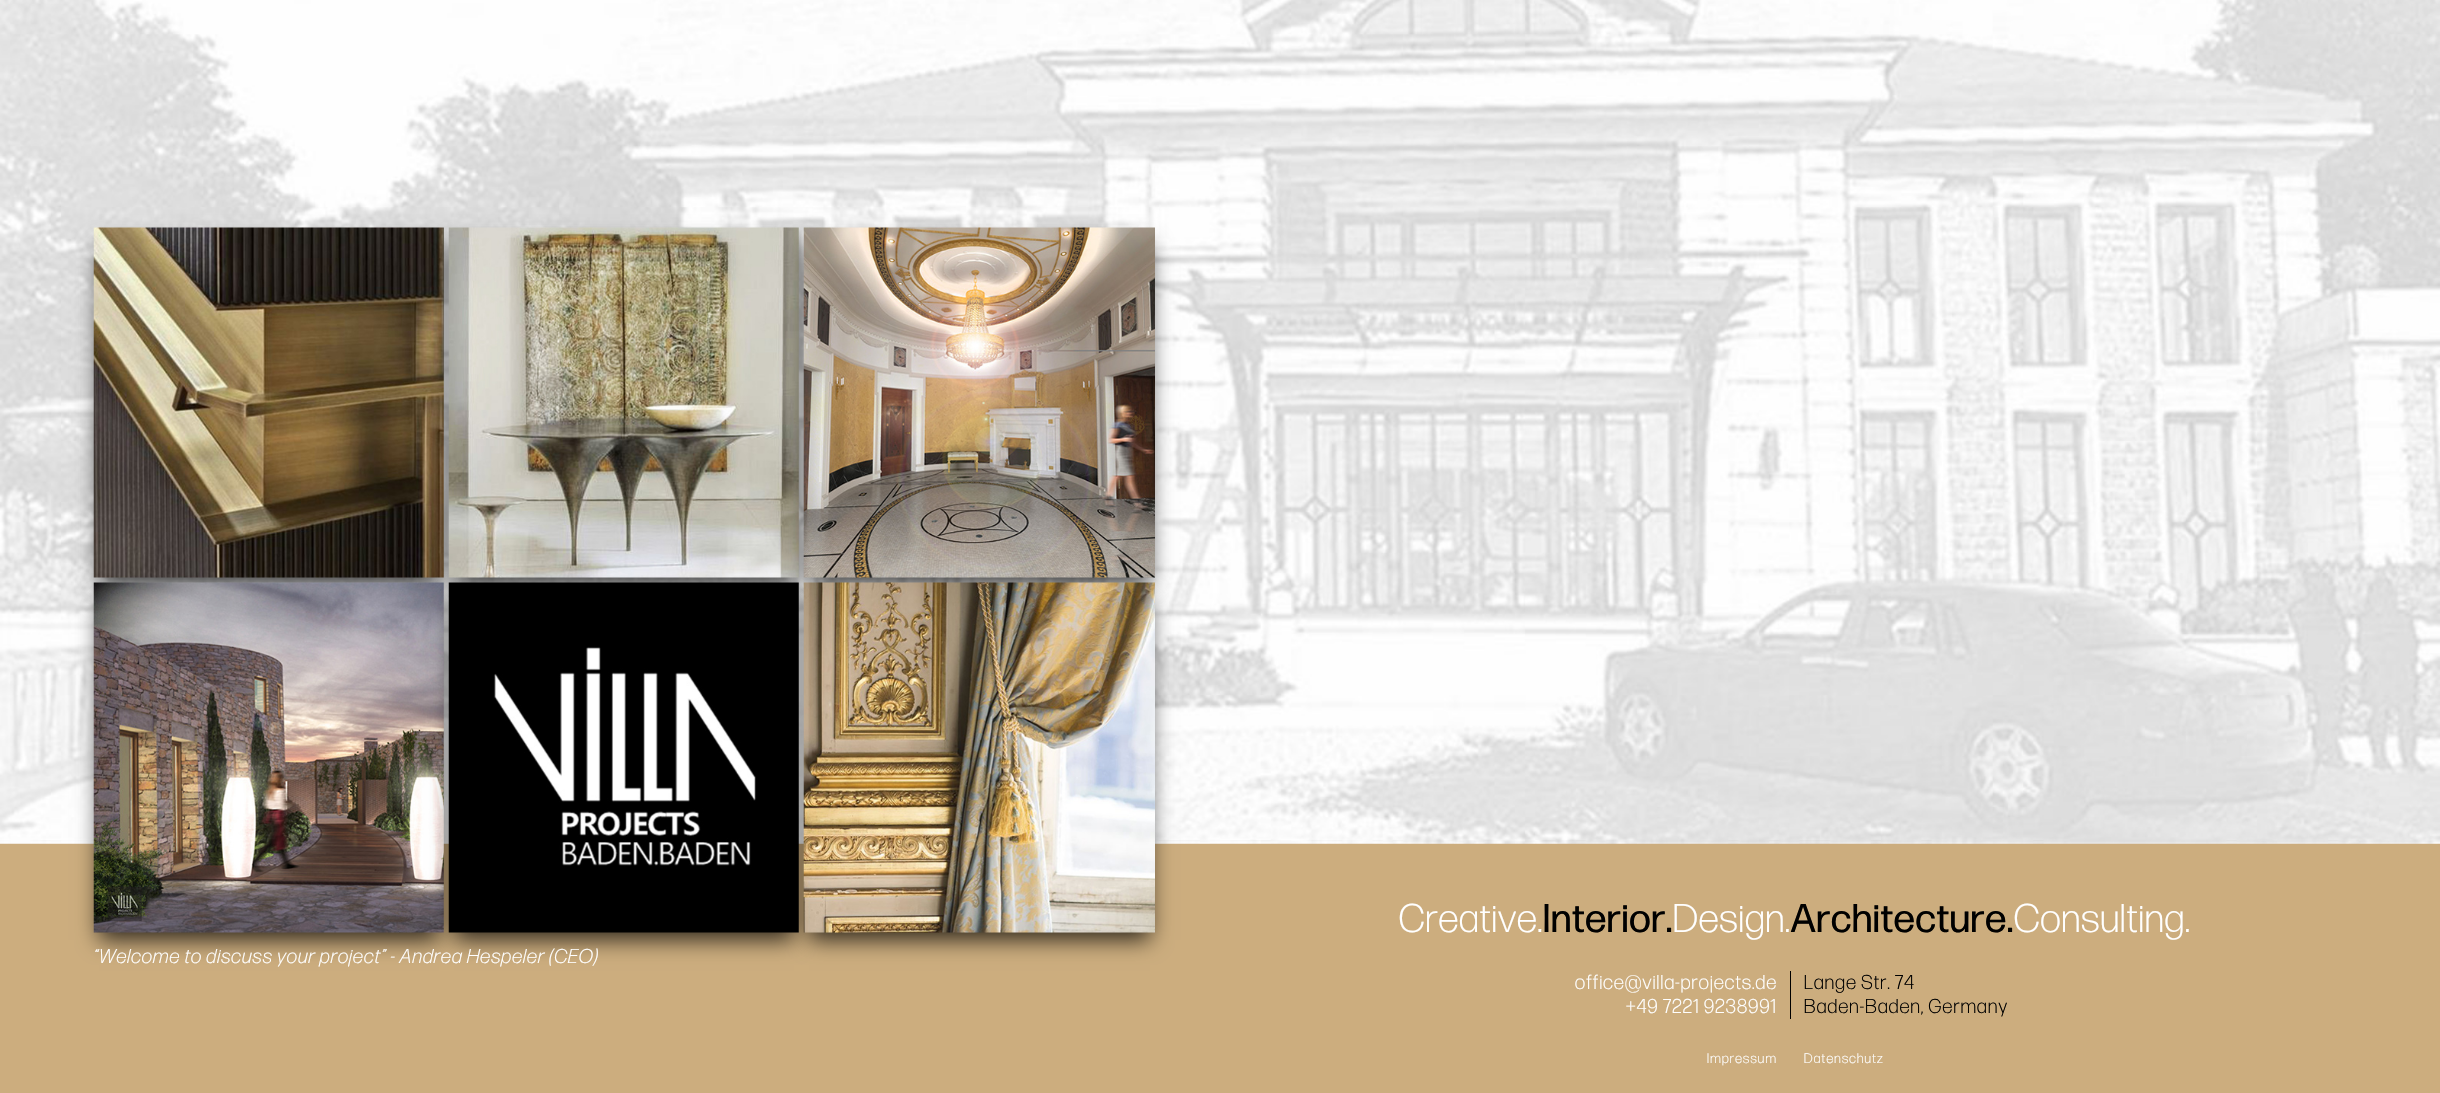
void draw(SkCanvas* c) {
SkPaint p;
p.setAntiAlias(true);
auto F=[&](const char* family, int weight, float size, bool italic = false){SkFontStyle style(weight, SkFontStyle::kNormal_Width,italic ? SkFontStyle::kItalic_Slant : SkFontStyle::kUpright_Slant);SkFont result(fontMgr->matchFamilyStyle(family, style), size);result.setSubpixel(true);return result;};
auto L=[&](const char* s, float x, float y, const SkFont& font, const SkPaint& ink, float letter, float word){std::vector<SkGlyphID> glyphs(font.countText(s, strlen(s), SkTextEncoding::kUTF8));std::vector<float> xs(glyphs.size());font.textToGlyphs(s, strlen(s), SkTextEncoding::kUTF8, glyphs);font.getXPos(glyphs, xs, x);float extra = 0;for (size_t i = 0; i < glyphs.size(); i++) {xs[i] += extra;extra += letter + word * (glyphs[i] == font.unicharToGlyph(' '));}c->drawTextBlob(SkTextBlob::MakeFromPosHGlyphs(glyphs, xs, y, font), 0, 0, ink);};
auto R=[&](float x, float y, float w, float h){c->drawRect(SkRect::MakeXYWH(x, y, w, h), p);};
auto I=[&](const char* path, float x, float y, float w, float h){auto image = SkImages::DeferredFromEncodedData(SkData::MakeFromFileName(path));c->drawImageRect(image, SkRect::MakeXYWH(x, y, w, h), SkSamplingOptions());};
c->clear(0xffccad7e);
I("1.png",0,0,2440,844);
p.setColor(0xbf000000);
p.setMaskFilter(SkMaskFilter::MakeBlur(kNormal_SkBlurStyle, 10.5));
c->drawRect(SkRect::MakeXYWH(99,245,340,340),p);
p.setMaskFilter(nullptr);
I("2.png",93,227,351,351);
p.setMaskFilter(SkMaskFilter::MakeBlur(kNormal_SkBlurStyle, 10.5));
c->drawRect(SkRect::MakeXYWH(454,245,340,340),p);
p.setMaskFilter(nullptr);
I("3.png",448,227,351,351);
p.setMaskFilter(SkMaskFilter::MakeBlur(kNormal_SkBlurStyle, 10.5));
c->drawRect(SkRect::MakeXYWH(809,245,341,340),p);
p.setMaskFilter(nullptr);
I("4.png",803,227,352,351);
p.setMaskFilter(SkMaskFilter::MakeBlur(kNormal_SkBlurStyle, 10.5));
c->drawRect(SkRect::MakeXYWH(99,600,340,340),p);
p.setMaskFilter(nullptr);
I("5.png",93,582,351,351);
p.setMaskFilter(SkMaskFilter::MakeBlur(kNormal_SkBlurStyle, 10.5));
c->drawRect(SkRect::MakeXYWH(454,600,340,340),p);
p.setMaskFilter(nullptr);
I("6.png",448,582,351,351);
p.setMaskFilter(SkMaskFilter::MakeBlur(kNormal_SkBlurStyle, 10.5));
c->drawRect(SkRect::MakeXYWH(809,600,341,340),p);
p.setMaskFilter(nullptr);
I("7.png",803,582,352,351);
auto f1 = F("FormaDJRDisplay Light",300,20,true);
p.setColor(0xffffffff);
L("“Welcome to discuss your project” - Andrea Hespeler (CEO)",94,963,f1,p,1.25,0);
auto f2 = F("FormaDJRDisplay Light",300,40);
L("Creative.",1399,932,f2,p,1.25,0);
auto f3 = F("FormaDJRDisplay",400,40);
p.setColor(0xff000000);
L("Interior.",1543,932,f3,p,1.25,0);
p.setColor(0xffffffff);
L("Design.",1673,932,f2,p,1.25,0);
p.setColor(0xff000000);
L("Architecture.",1791,932,f3,p,1.25,0);
p.setColor(0xffffffff);
L("Consulting.",2014,932,f2,p,1.25,0);
p.setColor(0xff000000);
R(1790,971,1,48);
auto f4 = F("FormaDJRDisplay Light",300,20);
p.setColor(0xffffffff);
L("office@villa-projects.de",1575,989,f4,p,1.25,0);
L("+49 7221 9238991",1626,1013,f4,p,1.25,0);
p.setColor(0xff000000);
L("Lange Str. 74",1804,989,f4,p,1.25,0);
L("Baden-Baden, Germany",1804,1013,f4,p,1.25,0);
auto f5 = F("FormaDJRDisplay Light",300,13.75);
p.setColor(0xffffffff);
L("Impressum",1707,1063,f5,p,1.25,0);
L("Datenschutz",1804,1063,f5,p,1.25,0);
}
